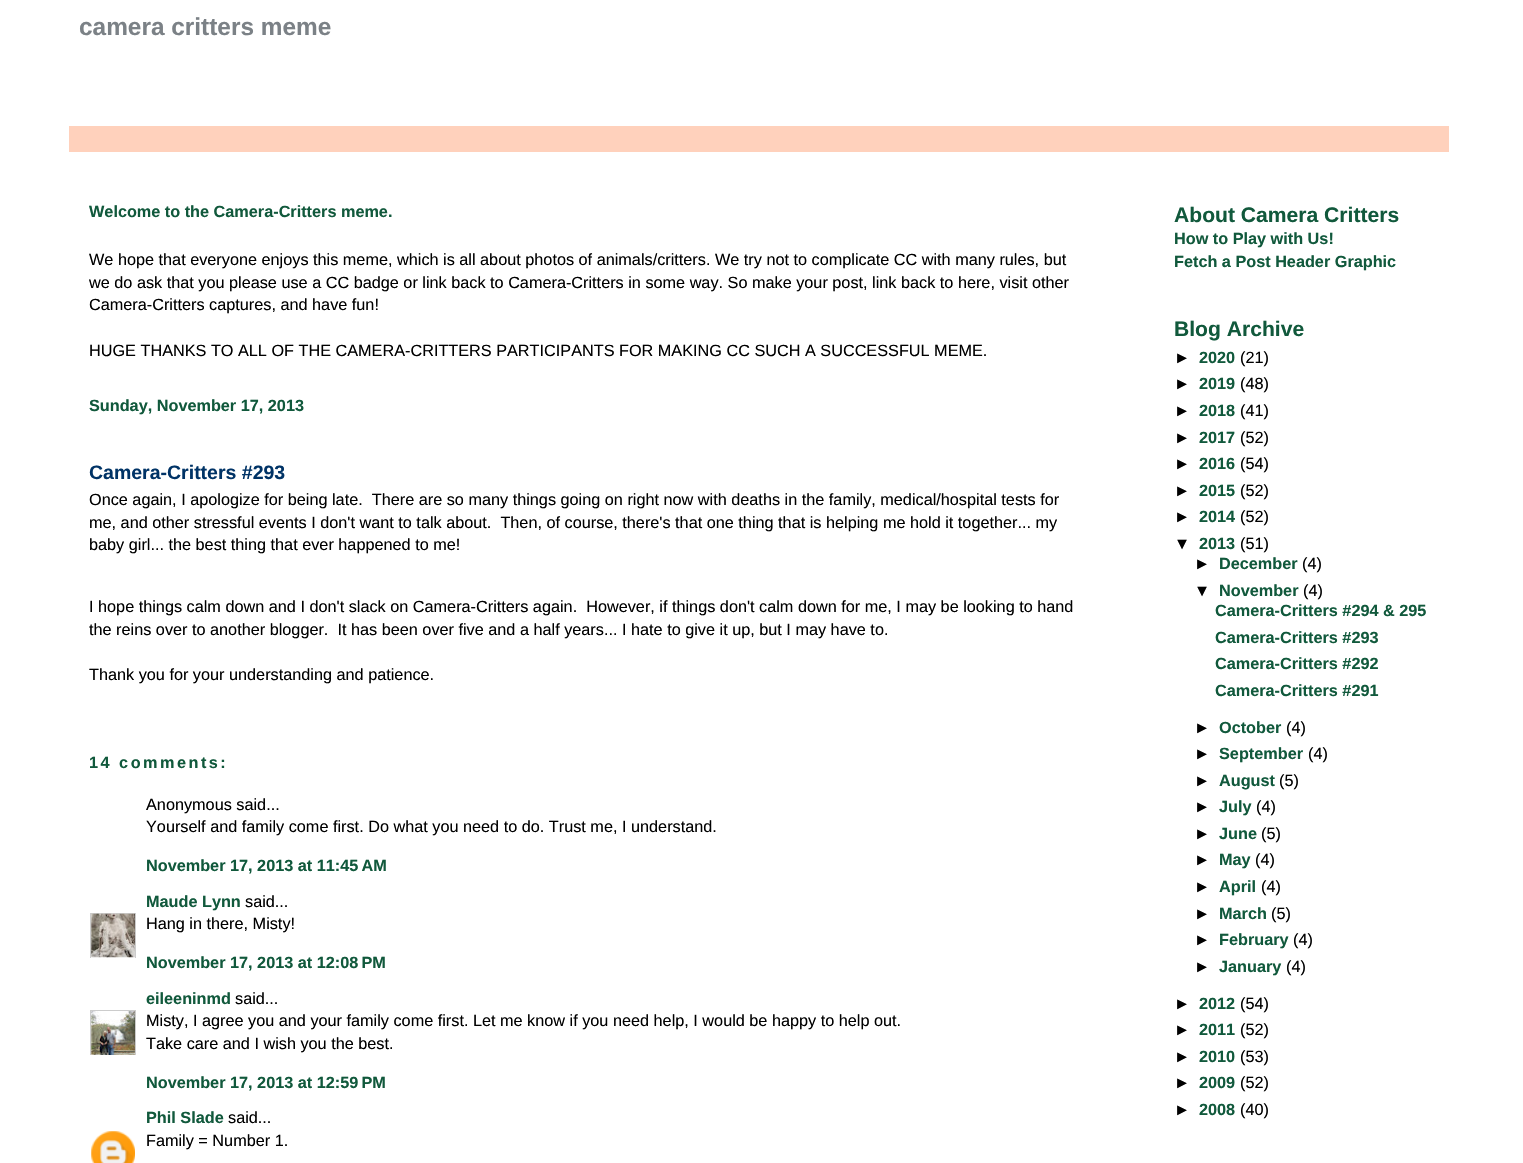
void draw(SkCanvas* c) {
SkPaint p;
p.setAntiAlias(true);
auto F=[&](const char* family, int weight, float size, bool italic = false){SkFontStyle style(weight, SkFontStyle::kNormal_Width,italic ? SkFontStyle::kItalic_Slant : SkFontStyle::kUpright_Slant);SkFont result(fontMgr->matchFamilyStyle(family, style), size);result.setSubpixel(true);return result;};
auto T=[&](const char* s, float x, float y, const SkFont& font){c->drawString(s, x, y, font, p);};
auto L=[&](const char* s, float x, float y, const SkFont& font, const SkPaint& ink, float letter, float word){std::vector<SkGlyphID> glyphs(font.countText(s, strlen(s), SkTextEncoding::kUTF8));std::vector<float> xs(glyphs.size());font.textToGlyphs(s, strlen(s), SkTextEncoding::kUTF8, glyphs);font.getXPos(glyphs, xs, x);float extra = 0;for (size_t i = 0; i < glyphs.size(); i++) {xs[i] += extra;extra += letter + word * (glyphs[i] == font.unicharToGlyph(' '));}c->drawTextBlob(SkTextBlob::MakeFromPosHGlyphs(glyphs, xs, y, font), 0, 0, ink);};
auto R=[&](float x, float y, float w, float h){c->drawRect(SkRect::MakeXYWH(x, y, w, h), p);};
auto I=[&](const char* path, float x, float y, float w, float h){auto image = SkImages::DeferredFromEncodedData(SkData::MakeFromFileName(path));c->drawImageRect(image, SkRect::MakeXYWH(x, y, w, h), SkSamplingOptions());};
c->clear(0xffffffff);
auto f1 = F("Liberation Sans",700,24.4);
p.setColor(0xff7b8186);
T("camera critters meme",79,35,f1);
p.setColor(0xffffd1bc);
R(69,126,1380,26);
auto f2 = F("Liberation Sans",700,16.25);
p.setColor(0xff11593c);
T("Welcome to the Camera-Critters meme.",89,217,f2);
auto f3 = F("Liberation Sans",400,16.25);
p.setColor(0xff000000);
T("We hope that everyone enjoys this meme, which is all about photos of animals/critters. We try not to complicate CC with many rules, but",89,265,f3);
T("we do ask that you please use a CC badge or link back to Camera-Critters in some way. So make your post, link back to here, visit other",89,288,f3);
T("Camera-Critters captures, and have fun!",89,310,f3);
T("HUGE THANKS TO ALL OF THE CAMERA-CRITTERS PARTICIPANTS FOR MAKING CC SUCH A SUCCESSFUL MEME.",89,356,f3);
p.setColor(0xff11593c);
T("Sunday, November 17, 2013",89,411,f2);
auto f4 = F("Liberation Sans",700,19.5);
p.setColor(0xff003366);
T("Camera-Critters #293",89,479,f4);
p.setColor(0xff000000);
T("Once again, I apologize for being late.  There are so many things going on right now with deaths in the family, medical/hospital tests for",89,505,f3);
T("me, and other stressful events I don't want to talk about.  Then, of course, there's that one thing that is helping me hold it together... my",89,528,f3);
T("baby girl... the best thing that ever happened to me!",89,550,f3);
T("I hope things calm down and I don't slack on Camera-Critters again.  However, if things don't calm down for me, I may be looking to hand",89,612,f3);
T("the reins over to another blogger.  It has been over five and a half years... I hate to give it up, but I may have to.",89,635,f3);
T("Thank you for your understanding and patience.",89,680,f3);
p.setColor(0xff11593c);
L("14 comments:",89,768,f2,p,2.5,0);
p.setColor(0xff000000);
T("Anonymous said...",146,810,f3);
T("Yourself and family come first. Do what you need to do. Trust me, I understand.",146,832,f3);
p.setColor(0xff11593c);
T("November 17, 2013 at 11:45 AM",146,871,f2);
T("Maude Lynn",146,907,f2);
p.setColor(0xff000000);
T("said...",245,907,f3);
c->save();
c->clipRect(SkRect::MakeXYWH(90,913,46,45));
p.setStroke(true);
p.setStrokeWidth(1);
p.setColor(0xffcccccc);
c->drawRect(SkRect::MakeXYWH(90.5,913.5,45,45),p);
c->restore();
I("1.png",91,913,44,45);
p.setStroke(false);
p.setColor(0xff000000);
T("Hang in there, Misty!",146,929,f3);
p.setColor(0xff11593c);
T("November 17, 2013 at 12:08 PM",146,968,f2);
T("eileeninmd",146,1004,f2);
p.setColor(0xff000000);
T("said...",235,1004,f3);
c->save();
c->clipRect(SkRect::MakeXYWH(90,1010,46,45));
p.setStroke(true);
p.setColor(0xffcccccc);
c->drawRect(SkRect::MakeXYWH(90.5,1010.5,45,45),p);
c->restore();
I("2.png",91,1011,44,44);
p.setStroke(false);
p.setColor(0xff000000);
T("Misty, I agree you and your family come first. Let me know if you need help, I would be happy to help out.",146,1026,f3);
T("Take care and I wish you the best.",146,1049,f3);
p.setColor(0xff11593c);
T("November 17, 2013 at 12:59 PM",146,1088,f2);
T("Phil Slade",146,1123,f2);
p.setColor(0xff000000);
T("said...",228,1123,f3);
I("3.png",91,1131,44,32);
T("Family = Number 1.",146,1146,f3);
auto f5 = F("Liberation Sans",700,21.1);
p.setColor(0xff11593c);
T("About Camera Critters",1174,222,f5);
T("How to Play with Us!",1174,244,f2);
T("Fetch a Post Header Graphic",1174,267,f2);
T("Blog Archive",1174,336,f5);
p.setColor(0xff000000);
T("►",1174,363,f2);
p.setColor(0xff11593c);
T("2020",1199,363,f2);
p.setColor(0xff000000);
T("(21)",1240,363,f3);
T("►",1174,389,f2);
p.setColor(0xff11593c);
T("2019",1199,389,f2);
p.setColor(0xff000000);
T("(48)",1240,389,f3);
T("►",1174,416,f2);
p.setColor(0xff11593c);
T("2018",1199,416,f2);
p.setColor(0xff000000);
T("(41)",1240,416,f3);
T("►",1174,443,f2);
p.setColor(0xff11593c);
T("2017",1199,443,f2);
p.setColor(0xff000000);
T("(52)",1240,443,f3);
T("►",1174,469,f2);
p.setColor(0xff11593c);
T("2016",1199,469,f2);
p.setColor(0xff000000);
T("(54)",1240,469,f3);
T("►",1174,496,f2);
p.setColor(0xff11593c);
T("2015",1199,496,f2);
p.setColor(0xff000000);
T("(52)",1240,496,f3);
T("►",1174,522,f2);
p.setColor(0xff11593c);
T("2014",1199,522,f2);
p.setColor(0xff000000);
T("(52)",1240,522,f3);
T("▼",1174,549,f2);
p.setColor(0xff11593c);
T("2013",1199,549,f2);
p.setColor(0xff000000);
T("(51)",1240,549,f3);
T("►",1194,569,f2);
p.setColor(0xff11593c);
T("December",1219,569,f2);
p.setColor(0xff000000);
T("(4)",1302,569,f3);
T("▼",1194,596,f2);
p.setColor(0xff11593c);
T("November",1219,596,f2);
p.setColor(0xff000000);
T("(4)",1303,596,f3);
p.setColor(0xff11593c);
T("Camera-Critters #294 & 295",1215,616,f2);
T("Camera-Critters #293",1215,643,f2);
T("Camera-Critters #292",1215,669,f2);
T("Camera-Critters #291",1215,696,f2);
p.setColor(0xff000000);
T("►",1194,733,f2);
p.setColor(0xff11593c);
T("October",1219,733,f2);
p.setColor(0xff000000);
T("(4)",1286,733,f3);
T("►",1194,759,f2);
p.setColor(0xff11593c);
T("September",1219,759,f2);
p.setColor(0xff000000);
T("(4)",1308,759,f3);
T("►",1194,786,f2);
p.setColor(0xff11593c);
T("August",1219,786,f2);
p.setColor(0xff000000);
T("(5)",1279,786,f3);
T("►",1194,812,f2);
p.setColor(0xff11593c);
T("July",1219,812,f2);
p.setColor(0xff000000);
T("(4)",1256,812,f3);
T("►",1194,839,f2);
p.setColor(0xff11593c);
T("June",1219,839,f2);
p.setColor(0xff000000);
T("(5)",1261,839,f3);
T("►",1194,865,f2);
p.setColor(0xff11593c);
T("May",1219,865,f2);
p.setColor(0xff000000);
T("(4)",1255,865,f3);
T("►",1194,892,f2);
p.setColor(0xff11593c);
T("April",1219,892,f2);
p.setColor(0xff000000);
T("(4)",1261,892,f3);
T("►",1194,919,f2);
p.setColor(0xff11593c);
T("March",1219,919,f2);
p.setColor(0xff000000);
T("(5)",1271,919,f3);
T("►",1194,945,f2);
p.setColor(0xff11593c);
T("February",1219,945,f2);
p.setColor(0xff000000);
T("(4)",1293,945,f3);
T("►",1194,972,f2);
p.setColor(0xff11593c);
T("January",1219,972,f2);
p.setColor(0xff000000);
T("(4)",1286,972,f3);
T("►",1174,1009,f2);
p.setColor(0xff11593c);
T("2012",1199,1009,f2);
p.setColor(0xff000000);
T("(54)",1240,1009,f3);
T("►",1174,1035,f2);
p.setColor(0xff11593c);
T("2011",1199,1035,f2);
p.setColor(0xff000000);
T("(52)",1240,1035,f3);
T("►",1174,1062,f2);
p.setColor(0xff11593c);
T("2010",1199,1062,f2);
p.setColor(0xff000000);
T("(53)",1240,1062,f3);
T("►",1174,1088,f2);
p.setColor(0xff11593c);
T("2009",1199,1088,f2);
p.setColor(0xff000000);
T("(52)",1240,1088,f3);
T("►",1174,1115,f2);
p.setColor(0xff11593c);
T("2008",1199,1115,f2);
p.setColor(0xff000000);
T("(40)",1240,1115,f3);
}
